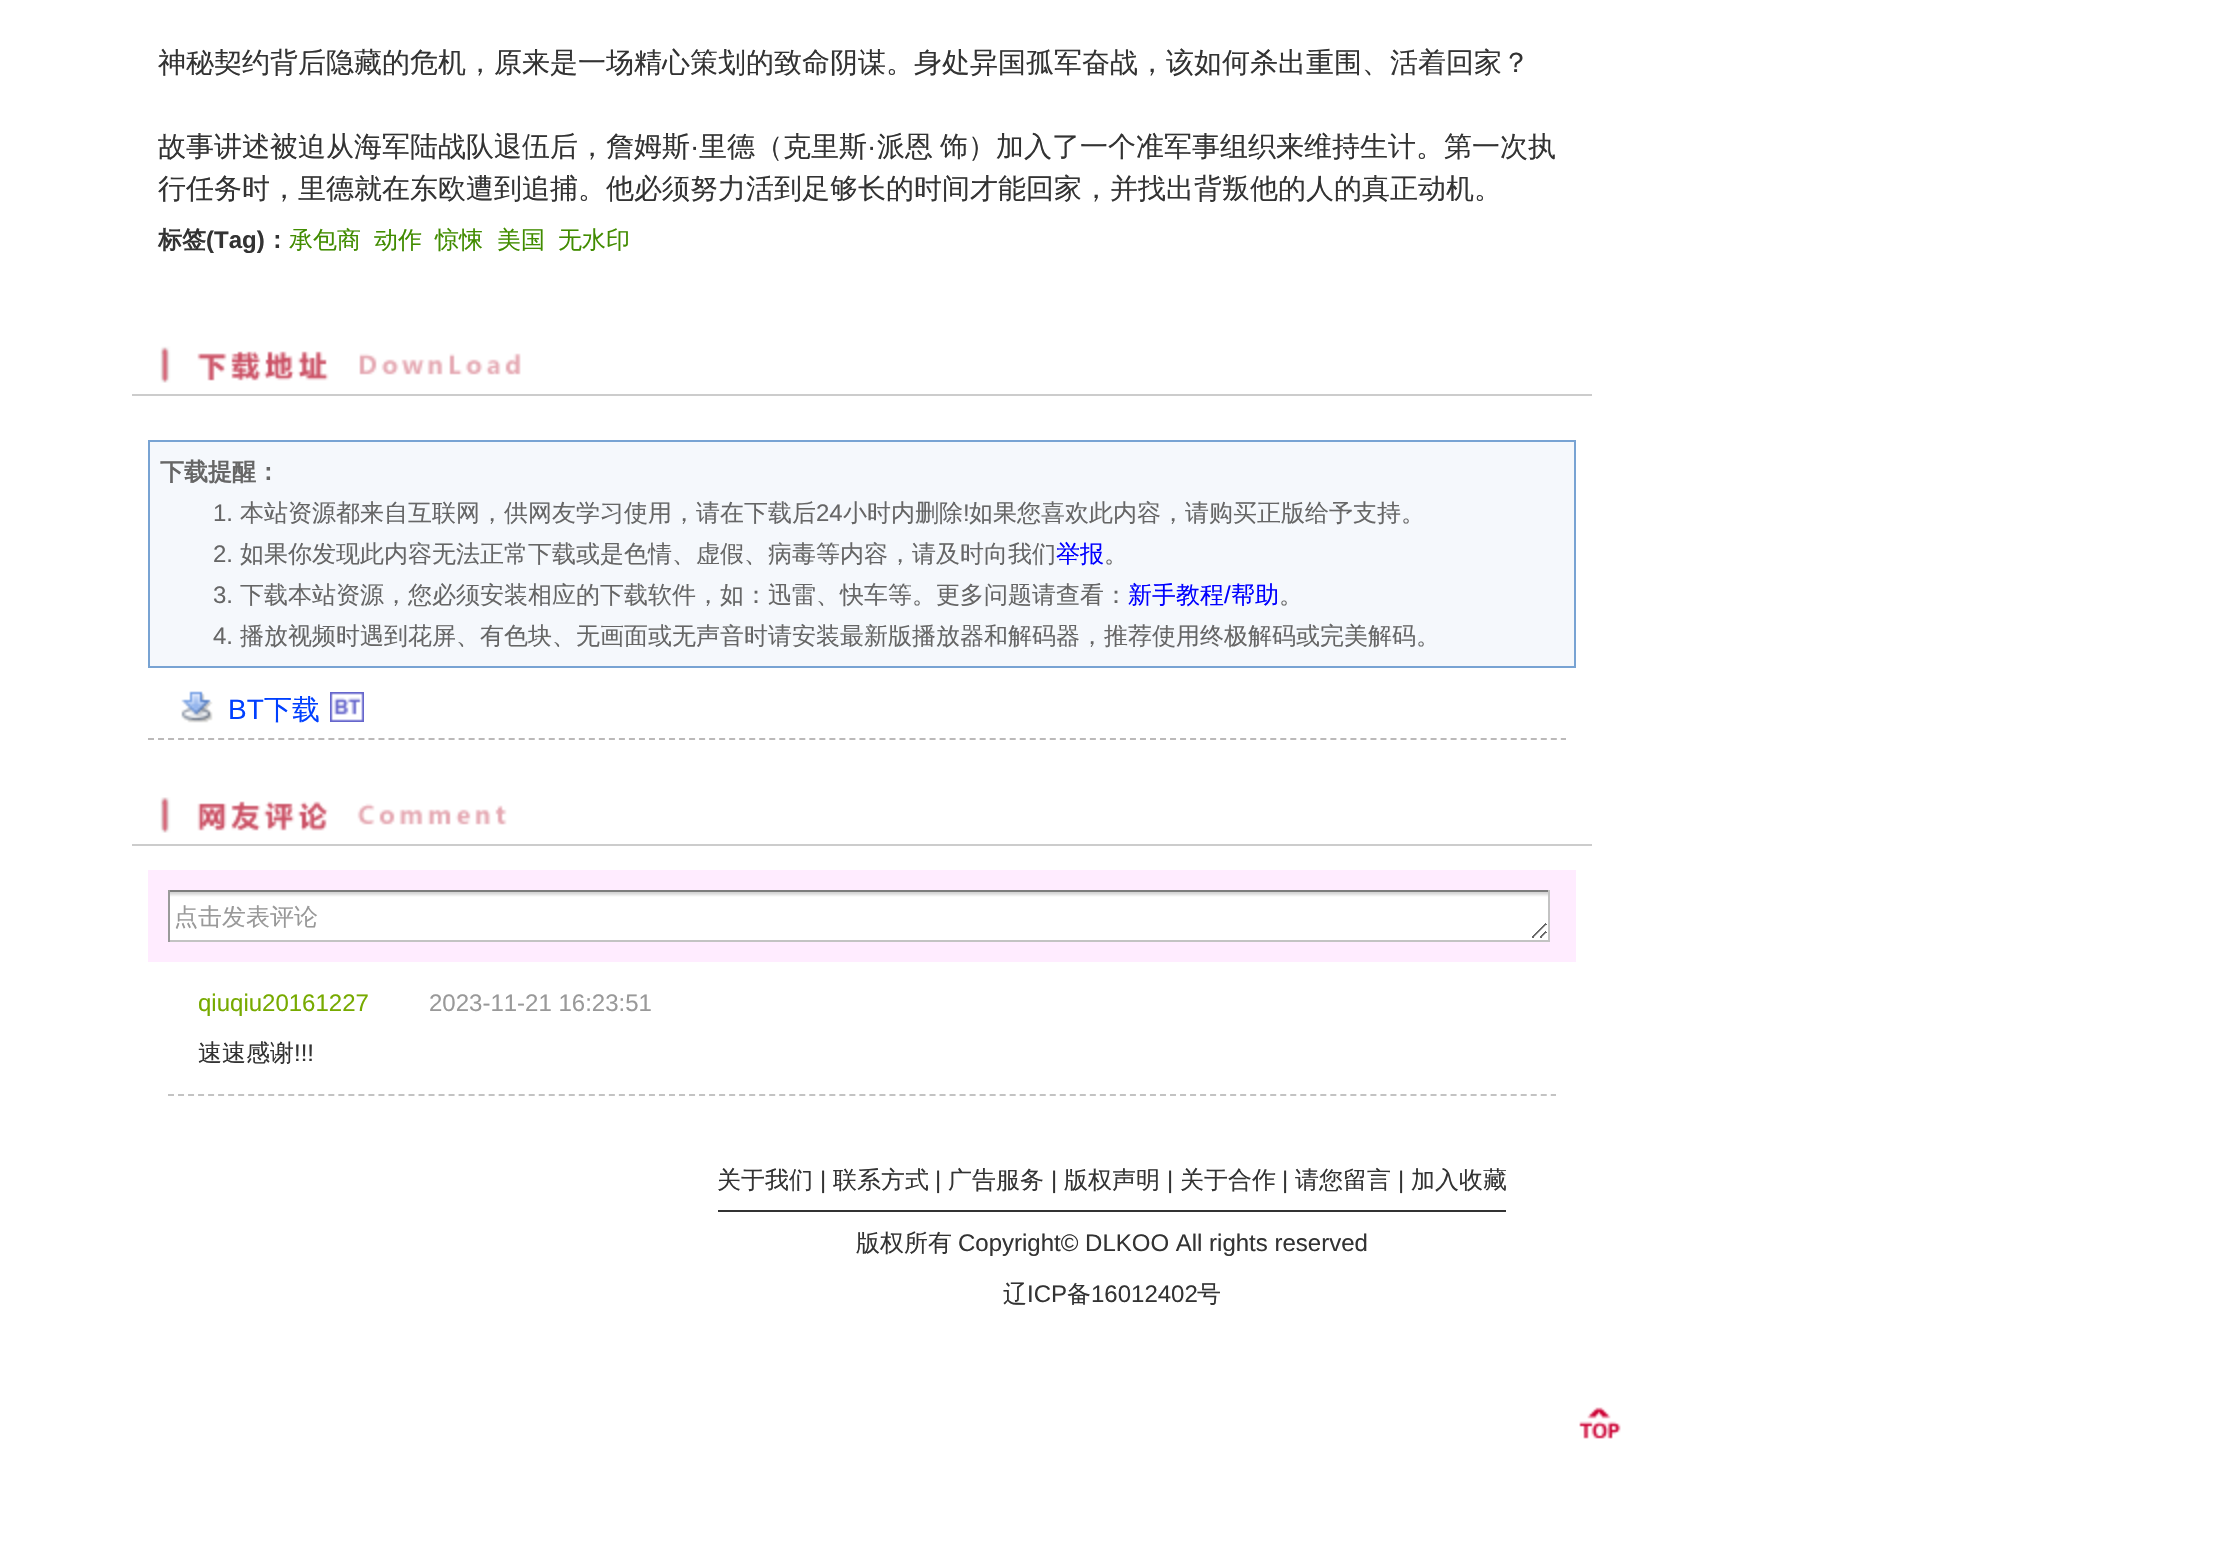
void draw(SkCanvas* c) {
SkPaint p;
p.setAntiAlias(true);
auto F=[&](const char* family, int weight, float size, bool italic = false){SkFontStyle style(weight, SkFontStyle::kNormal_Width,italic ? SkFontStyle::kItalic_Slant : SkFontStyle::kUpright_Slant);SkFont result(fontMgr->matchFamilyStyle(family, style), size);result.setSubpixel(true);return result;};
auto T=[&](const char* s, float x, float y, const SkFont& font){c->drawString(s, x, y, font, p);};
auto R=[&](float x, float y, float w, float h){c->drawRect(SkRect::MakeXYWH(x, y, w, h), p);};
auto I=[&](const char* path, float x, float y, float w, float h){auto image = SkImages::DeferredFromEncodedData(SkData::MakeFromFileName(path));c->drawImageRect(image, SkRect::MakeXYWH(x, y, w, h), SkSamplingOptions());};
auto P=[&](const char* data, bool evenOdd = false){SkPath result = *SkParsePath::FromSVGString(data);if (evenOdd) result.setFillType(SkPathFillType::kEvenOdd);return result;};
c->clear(0xffffffff);
auto f1 = F("WenQuanYi Zen Hei",500,28);
p.setColor(0xff333333);
T("神秘契约背后隐藏的危机，原来是一场精心策划的致命阴谋。身处异国孤军奋战，该如何杀出重围、活着回家？",158,72,f1);
T("故事讲述被迫从海军陆战队退伍后，詹姆斯",158,156,f1);
auto f2 = F("Liberation Sans",400,28);
T("·",690,156,f2);
T("里德（克里斯",699,156,f1);
T("·",867,156,f2);
T("派恩",877,156,f1);
T("饰）加入了一个准军事组织来维持生计。第一次执",940,156,f1);
T("行任务时，里德就在东欧遭到追捕。他必须努力活到足够长的时间才能回家，并找出背叛他的人的真正动机。",158,198,f1);
auto f3 = F("WenQuanYi Zen Hei",700,24);
T("标签",158,248,f3);
auto f4 = F("Liberation Sans",700,24);
T("(Tag)",206,248,f4);
T("：",265,248,f3);
auto f5 = F("WenQuanYi Zen Hei",500,24);
p.setColor(0xff418c00);
T("承包商",289,248,f5);
T("动作",374,248,f5);
T("惊悚",435,248,f5);
T("美国",497,248,f5);
T("无水印",558,248,f5);
I("1.png",160,346,361,37);
p.setColor(0xffcccccc);
R(132,394,1460,2);
p.setColor(0xfff5f8fc);
c->drawRect(SkRect::MakeXYWH(149,441,1426,226),p);
p.setStroke(true);
p.setStrokeWidth(2);
p.setColor(0xff78a3d3);
c->drawRect(SkRect::MakeXYWH(149,441,1426,226),p);
p.setStroke(false);
p.setColor(0xff666666);
T("下载提醒：",160,480,f3);
auto f6 = F("Liberation Sans",400,24);
T("1.",213,521,f6);
T("本站资源都来自互联网，供网友学习使用，请在下载后",240,521,f5);
T("24",816,521,f6);
T("小时内删除",843,521,f5);
T("!",963,521,f6);
T("如果您喜欢此内容，请购买正版给予支持。",969,521,f5);
T("2.",213,562,f6);
T("如果你发现此内容无法正常下载或是色情、虚假、病毒等内容，请及时向我们",240,562,f5);
p.setColor(0xff0000ff);
T("举报",1056,562,f5);
p.setColor(0xff666666);
T("。",1104,562,f5);
T("3.",213,603,f6);
T("下载本站资源，您必须安装相应的下载软件，如：迅雷、快车等。更多问题请查看：",240,603,f5);
p.setColor(0xff0000ff);
T("新手教程",1128,603,f5);
T("/",1224,603,f6);
T("帮助",1231,603,f5);
p.setColor(0xff666666);
T("。",1279,603,f5);
T("4.",213,644,f6);
T("播放视频时遇到花屏、有色块、无画面或无声音时请安装最新版播放器和解码器，推荐使用终极解码或完美解码。",240,644,f5);
I("2.png",181,691,32,32);
p.setStroke(true);
p.setColor(0xffbbb9b9);
p.setPathEffect(SkDashPathEffect::Make({{6,4.02f}}, 0));
c->drawPath(P("M148 739h1418"),p);
p.setPathEffect(nullptr);
p.setStroke(false);
p.setColor(0xff0040ff);
T("BT",228,719,f2);
T("下载",264,719,f1);
I("3.png",330,692,34,30);
I("4.png",160,797,347,36);
p.setColor(0xffcccccc);
R(132,844,1460,2);
p.setColor(0xffffecff);
R(148,870,1428,92);
p.setColor(0xffffffff);
R(170,895,1378,45);
I("5.png",170,892,1378,46);
p.setColor(0xff7c7c7c);
R(168,890,1382,2);
p.setColor(0xffc3c3c3);
R(1548,890,2,52);
R(168,940,1382,2);
p.setColor(0xff9a9a9a);
R(168,890,2,52);
p.setColor(0xff999999);
T("点击发表评论",174,925,f5);
p.setStroke(true);
p.setColor(0xffc3c3c3);
p.setPathEffect(SkDashPathEffect::Make({{6,4.02f}}, 0));
c->drawPath(P("M168 1095h1388"),p);
p.setPathEffect(nullptr);
p.setStroke(false);
p.setColor(0xff77aa00);
T("qiuqiu20161227",198,1011,f6);
p.setColor(0xff999999);
T("2023-11-21 16:23:51",429,1011,f6);
p.setColor(0xff333333);
T("速速感谢",198,1061,f5);
T("!!!",294,1061,f6);
T("关于我们",717,1188,f5);
T("|",820,1188,f6);
T("联系方式",833,1188,f5);
T("|",935,1188,f6);
T("广告服务",948,1188,f5);
T("|",1051,1188,f6);
T("版权声明",1064,1188,f5);
T("|",1167,1188,f6);
T("关于合作",1180,1188,f5);
T("|",1282,1188,f6);
T("请您留言",1295,1188,f5);
T("|",1398,1188,f6);
T("加入收藏",1411,1188,f5);
R(718,1210,788,2);
T("版权所有",856,1251,f5);
T("Copyright© DLKOO All rights reserved",958,1251,f6);
T("辽",1003,1302,f5);
T("ICP",1027,1302,f6);
T("备",1067,1302,f5);
T("16012402",1091,1302,f6);
T("号",1197,1302,f5);
I("6.png",1579,1407,42,32);
}
